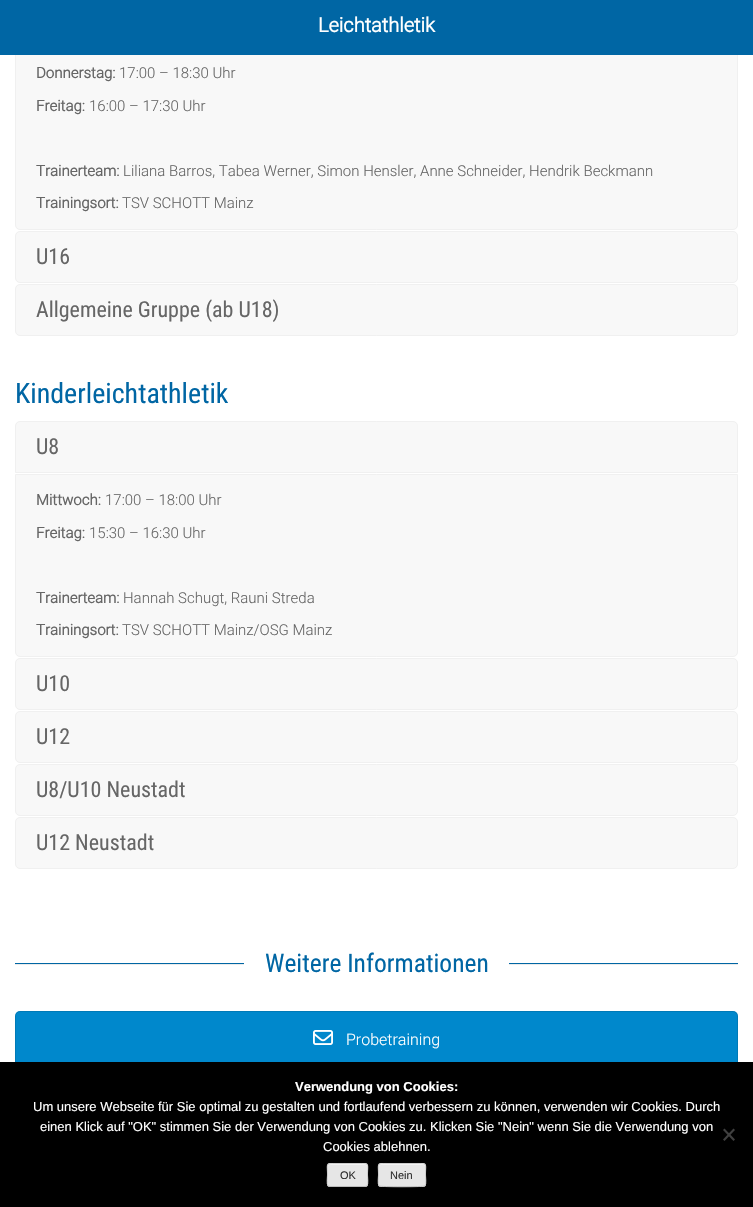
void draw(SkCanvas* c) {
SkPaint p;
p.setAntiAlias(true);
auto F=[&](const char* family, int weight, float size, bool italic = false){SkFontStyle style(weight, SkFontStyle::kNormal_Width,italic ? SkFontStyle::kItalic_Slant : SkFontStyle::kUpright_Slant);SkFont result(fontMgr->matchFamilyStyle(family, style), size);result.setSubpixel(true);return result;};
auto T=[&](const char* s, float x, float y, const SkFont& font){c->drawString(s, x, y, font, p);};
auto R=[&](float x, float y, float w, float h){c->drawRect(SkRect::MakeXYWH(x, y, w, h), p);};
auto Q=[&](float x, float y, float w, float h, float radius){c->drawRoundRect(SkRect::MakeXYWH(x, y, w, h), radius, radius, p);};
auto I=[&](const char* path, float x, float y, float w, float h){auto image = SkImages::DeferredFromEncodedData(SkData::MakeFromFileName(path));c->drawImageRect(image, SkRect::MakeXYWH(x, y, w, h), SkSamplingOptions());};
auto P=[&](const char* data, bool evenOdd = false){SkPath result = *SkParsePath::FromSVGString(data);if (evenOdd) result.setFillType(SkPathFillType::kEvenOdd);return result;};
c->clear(0xffffffff);
p.setColor(0xfff8f8f8);
c->drawPath(P("M15.5 15.5h722v209.5c0 2.5-2 4.5-4.5 4.5h-713c-2.5 0-4.5-2-4.5-4.5z"),p);
p.setStroke(true);
p.setStrokeWidth(1);
p.setColor(0xfff0f0f0);
c->drawPath(P("M15.5 15.5h722v209.5c0 2.5-2 4.5-4.5 4.5h-713c-2.5 0-4.5-2-4.5-4.5z"),p);
p.setStroke(false);
p.setColor(0xff0066a4);
R(0,0,753,55);
auto f1 = F("Roboto",700,20);
p.setColor(0xffffffff);
T("Leichtathletik",318,32,f1);
auto f2 = F("Roboto",700,15);
p.setColor(0xff666666);
T("Donnerstag:",36,78,f2);
auto f3 = F("Roboto",300,15);
T("17:00 – 18:30 Uhr",119,78,f3);
T("Freitag:",36,111,f2);
T("16:00 – 17:30 Uhr",89,111,f3);
T("Trainerteam:",36,176,f2);
T("Liliana Barros, Tabea Werner, Simon Hensler, Anne Schneider, Hendrik Beckmann",123,176,f3);
T("Trainingsort:",36,208,f2);
T("TSV SCHOTT Mainz",122,208,f3);
p.setColor(0xfff8f8f8);
c->drawRoundRect(SkRect::MakeXYWH(15.5,231.5,722,51),4.5,4.5,p);
p.setStroke(true);
p.setColor(0xfff0f0f0);
c->drawRoundRect(SkRect::MakeXYWH(15.5,231.5,722,51),4.5,4.5,p);
auto f4 = F("Roboto Condensed",400,22);
p.setStroke(false);
p.setColor(0xff666666);
T("U16",36,264,f4);
p.setColor(0xfff8f8f8);
c->drawRoundRect(SkRect::MakeXYWH(15.5,284.5,722,51),4.5,4.5,p);
p.setStroke(true);
p.setColor(0xfff0f0f0);
c->drawRoundRect(SkRect::MakeXYWH(15.5,284.5,722,51),4.5,4.5,p);
p.setStroke(false);
p.setColor(0xff666666);
T("Allgemeine Gruppe (ab U18)",36,317,f4);
auto f5 = F("Roboto Condensed",400,28);
p.setColor(0xff0066a4);
T("Kinderleichtathletik",15,403,f5);
p.setColor(0xfff8f8f8);
c->drawPath(P("M20 421.5h713c2.5 0 4.5 2 4.5 4.5v46.5h-722v-46.5c0-2.5 2-4.5 4.5-4.5z"),p);
p.setStroke(true);
p.setColor(0xfff0f0f0);
c->drawPath(P("M20 421.5h713c2.5 0 4.5 2 4.5 4.5v46.5h-722v-46.5c0-2.5 2-4.5 4.5-4.5z"),p);
p.setStroke(false);
p.setColor(0xff666666);
T("U8",36,454,f4);
p.setColor(0xfff8f8f8);
c->drawPath(P("M15.5 474.5h722v177.5c0 2.5-2 4.5-4.5 4.5h-713c-2.5 0-4.5-2-4.5-4.5z"),p);
p.setStroke(true);
p.setColor(0xfff0f0f0);
c->drawPath(P("M15.5 474.5h722v177.5c0 2.5-2 4.5-4.5 4.5h-713c-2.5 0-4.5-2-4.5-4.5z"),p);
p.setStroke(false);
p.setColor(0xff666666);
T("Mittwoch:",36,505,f2);
T("17:00 – 18:00 Uhr",105,505,f3);
T("Freitag:",36,538,f2);
T("15:30 – 16:30 Uhr",89,538,f3);
T("Trainerteam:",36,603,f2);
T("Hannah Schugt, Rauni Streda",123,603,f3);
T("Trainingsort:",36,635,f2);
T("TSV SCHOTT Mainz/OSG Mainz",122,635,f3);
p.setColor(0xfff8f8f8);
c->drawRoundRect(SkRect::MakeXYWH(15.5,658.5,722,51),4.5,4.5,p);
p.setStroke(true);
p.setColor(0xfff0f0f0);
c->drawRoundRect(SkRect::MakeXYWH(15.5,658.5,722,51),4.5,4.5,p);
p.setStroke(false);
p.setColor(0xff666666);
T("U10",36,691,f4);
p.setColor(0xfff8f8f8);
c->drawRoundRect(SkRect::MakeXYWH(15.5,711.5,722,51),4.5,4.5,p);
p.setStroke(true);
p.setColor(0xfff0f0f0);
c->drawRoundRect(SkRect::MakeXYWH(15.5,711.5,722,51),4.5,4.5,p);
p.setStroke(false);
p.setColor(0xff666666);
T("U12",36,744,f4);
p.setColor(0xfff8f8f8);
c->drawRoundRect(SkRect::MakeXYWH(15.5,764.5,722,51),4.5,4.5,p);
p.setStroke(true);
p.setColor(0xfff0f0f0);
c->drawRoundRect(SkRect::MakeXYWH(15.5,764.5,722,51),4.5,4.5,p);
p.setStroke(false);
p.setColor(0xff666666);
T("U8/U10 Neustadt",36,797,f4);
p.setColor(0xfff8f8f8);
c->drawRoundRect(SkRect::MakeXYWH(15.5,817.5,722,51),4.5,4.5,p);
p.setStroke(true);
p.setColor(0xfff0f0f0);
c->drawRoundRect(SkRect::MakeXYWH(15.5,817.5,722,51),4.5,4.5,p);
p.setStroke(false);
p.setColor(0xff666666);
T("U12 Neustadt",36,850,f4);
p.setColor(0xff0066a4);
R(15,963,229,1);
p.setColor(0xffebebeb);
R(15,964,229,1);
auto f6 = F("Roboto Condensed",400,25.5);
p.setColor(0xff0066a4);
T("Weitere Informationen",265,972,f6);
R(509,963,229,1);
p.setColor(0xffebebeb);
R(509,964,229,1);
p.setColor(0xff0088cc);
Q(15,1011,723,57,5);
p.setStroke(true);
p.setColor(0x1a000000);
c->drawRoundRect(SkRect::MakeXYWH(15.5,1011.5,722,56),4.5,4.5,p);
I("1.png",313,1030,20,15);
auto f7 = F("Roboto",300,16);
p.setStroke(false);
p.setColor(0xffffffff);
T("Probetraining",346,1045,f7);
p.setColor(0xff000000);
R(0,1062,753,145);
auto f8 = F("Liberation Sans",700,13);
p.setColor(0xffffffff);
T("Verwendung von Cookies:",295,1091,f8);
auto f9 = F("Liberation Sans",400,13);
T("Um unsere Webseite für Sie optimal zu gestalten und fortlaufend verbessern zu können, verwenden wir Cookies. Durch",33,1111,f9);
T("einen Klick auf \"OK\" stimmen Sie der Verwendung von Cookies zu. Klicken Sie \"Nein\" wenn Sie die Verwendung von",40,1131,f9);
T("Cookies ablehnen.",323,1151,f9);
p.setColor(0xff404040);
c->drawPath(P("M733.5 1128.5l1.5 1.5l-10.5 11l-1.5-1.5z"),p);
c->drawPath(P("M723 1130l1.5-1.5l10.5 11l-1.5 1.5z"),p);
p.setColor(0xffe6e6e6);
Q(327,1163,41,24,3);
p.setColor(0xfff3f3f3);
c->drawPath(P("M330 1165h35c1 0 2 1 2 2c0-4.5-4-3-8-3h-23c-4 0-8-1.5-8 3c0-1 1-2 2-2z"),p);
p.setStroke(true);
p.setColor(0xffbbbbbb);
c->drawPath(P("M367 1186l-2 .5h-35l-2-.5"),p);
p.setColor(0xffcccccc);
c->drawPath(P("M328 1186c-1.5-2-.5-9-.5-11c0-11.5-2.5-11.5 8.5-11.5h23c11 0 8.5 0 8.5 11.5c0 2 1 9-.5 11"),p);
auto f10 = F("Liberation Sans",400,11);
p.setStroke(false);
p.setColor(0xff2e2e2e);
T("OK",340,1179,f10);
p.setColor(0xffe6e6e6);
Q(378,1163,48,24,3);
p.setColor(0xfff3f3f3);
c->drawPath(P("M381 1165h42c1 0 2 1 2 2c0-5-5-3-9-3h-28c-4 0-9-2-9 3c0-1 1-2 2-2z"),p);
p.setStroke(true);
p.setColor(0xffbbbbbb);
c->drawPath(P("M425 1186c-1.5 1-44.5 1-46 0"),p);
p.setColor(0xffcccccc);
c->drawPath(P("M379 1186c-1.5-2-.5-9-.5-11c0-12-2.5-11.5 9.5-11.5h28c12 0 9.5-.5 9.5 11.5c0 2 1 9-.5 11"),p);
p.setStroke(false);
p.setColor(0xff2e2e2e);
T("Nein",390,1179,f10);
}
